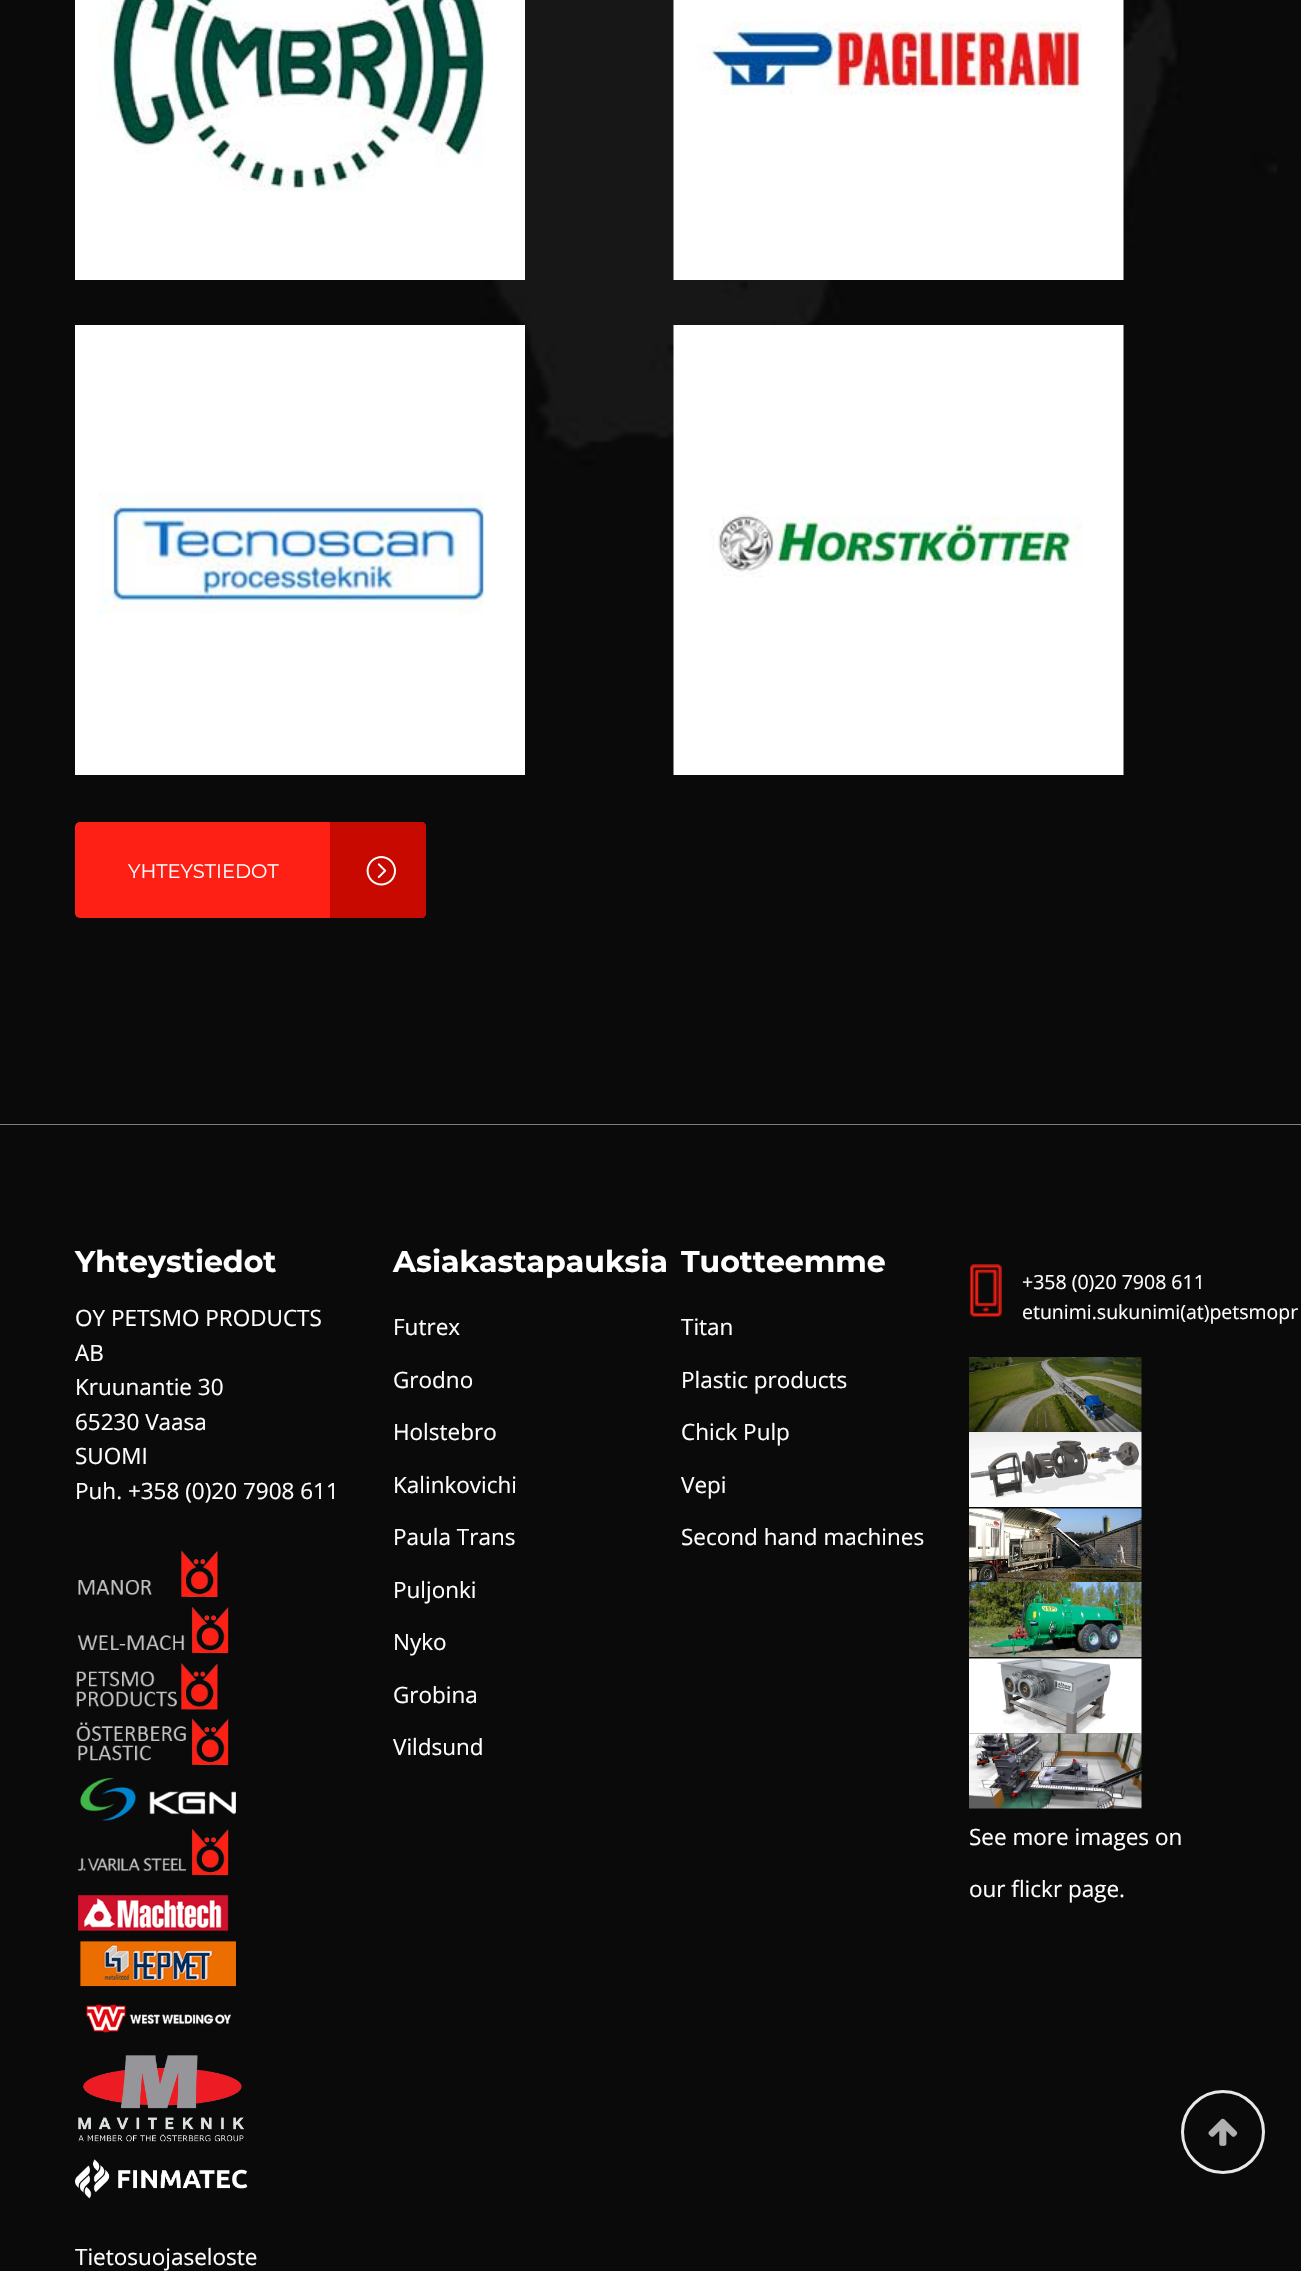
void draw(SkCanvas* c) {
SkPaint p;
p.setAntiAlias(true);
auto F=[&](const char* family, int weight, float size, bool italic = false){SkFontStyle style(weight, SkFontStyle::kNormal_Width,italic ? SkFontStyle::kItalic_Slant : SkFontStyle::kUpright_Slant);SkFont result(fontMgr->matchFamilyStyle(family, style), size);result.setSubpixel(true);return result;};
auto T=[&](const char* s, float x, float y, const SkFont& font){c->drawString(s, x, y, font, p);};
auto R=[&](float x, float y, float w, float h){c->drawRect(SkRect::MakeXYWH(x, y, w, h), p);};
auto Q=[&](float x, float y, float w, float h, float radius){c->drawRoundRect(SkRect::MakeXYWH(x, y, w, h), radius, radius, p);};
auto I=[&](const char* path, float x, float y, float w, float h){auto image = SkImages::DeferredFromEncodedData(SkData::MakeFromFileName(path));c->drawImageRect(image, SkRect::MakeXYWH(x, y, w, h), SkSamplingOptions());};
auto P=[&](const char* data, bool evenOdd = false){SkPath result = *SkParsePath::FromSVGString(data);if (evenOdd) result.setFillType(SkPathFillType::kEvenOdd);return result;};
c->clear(0xfff4f4f4);
I("1.png",0,0,1301,1125);
I("2.png",75,0,450,280);
I("3.png",673,0,451,280);
I("4.png",75,325,450,450);
I("5.png",673,325,451,450);
p.setColor(0xfffe2015);
Q(75,822,351,96,5);
auto f1 = F("Montserrat",400,19.5);
p.setColor(0xffffffff);
T("YHTEYSTIEDOT",128,878,f1);
p.setColor(0xffc70900);
c->drawPath(P("M330 822h91c3 0 5 2 5 5v86c0 3-2 5-5 5h-91z"),p);
I("6.png",366,856,30,30);
p.setColor(0xff0a0a0a);
R(0,1125,1301,1146);
auto f2 = F("Montserrat",700,30);
p.setColor(0xffffffff);
T("Yhteystiedot",75,1272,f2);
auto f3 = F("Open Sans",400,22.5);
T("OY PETSMO PRODUCTS",75,1326,f3);
T("AB",75,1361,f3);
T("Kruunantie 30",75,1395,f3);
T("65230 Vaasa",75,1430,f3);
T("SUOMI",75,1464,f3);
T("Puh. +358 (0)20 7908 611",75,1499,f3);
I("7.png",78,1550,140,47);
I("8.png",78,1607,151,47);
I("9.png",76,1663,142,47);
I("10.png",76,1718,153,47);
I("11.png",80,1778,156,43);
I("12.png",78,1829,151,47);
I("13.png",78,1895,151,36);
I("14.png",80,1941,156,46);
I("15.png",86,2004,145,29);
I("16.png",78,2055,166,87);
I("17.png",75,2159,173,40);
T("Tietosuojaseloste",75,2265,f3);
T("Asiakastapauksia",393,1272,f2);
T("Futrex",393,1335,f3);
T("Grodno",393,1388,f3);
T("Holstebro",393,1440,f3);
T("Kalinkovichi",393,1493,f3);
T("Paula Trans",393,1545,f3);
T("Puljonki",393,1598,f3);
T("Nyko",393,1650,f3);
T("Grobina",393,1703,f3);
T("Vildsund",393,1755,f3);
T("Tuotteemme",681,1272,f2);
T("Titan",681,1335,f3);
T("Plastic products",681,1388,f3);
T("Chick Pulp",681,1440,f3);
T("Vepi",681,1493,f3);
T("Second hand machines",681,1545,f3);
I("18.png",969,1264,33,53);
auto f4 = F("Open Sans",400,19.5);
T("+358 (0)20 7908 611",1022,1289,f4);
T("etunimi.sukunimi(at)petsmopr",1022,1319,f4);
I("19.png",969,1357,173,75);
I("20.png",969,1432,173,75);
I("21.png",969,1508,173,74);
I("22.png",969,1582,173,75);
I("23.png",969,1658,173,76);
I("24.png",969,1733,173,76);
T("See more images on",969,1845,f3);
T("our flickr page.",969,1897,f3);
p.setStroke(true);
p.setStrokeWidth(3);
p.setColor(0xffe8e8e8);
c->drawCircle(1223,2132,40.5,p);
I("25.png",1208,2118,30,28);
}
